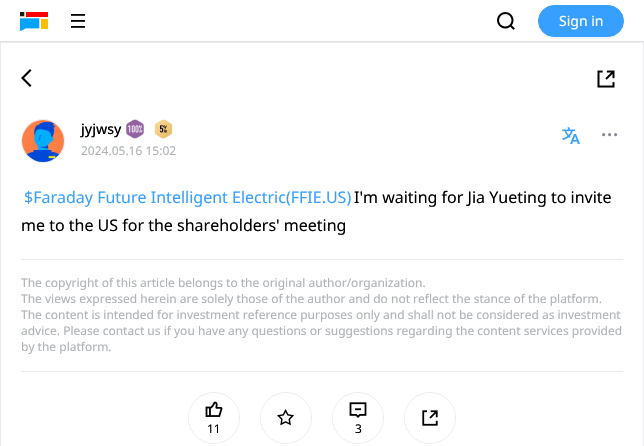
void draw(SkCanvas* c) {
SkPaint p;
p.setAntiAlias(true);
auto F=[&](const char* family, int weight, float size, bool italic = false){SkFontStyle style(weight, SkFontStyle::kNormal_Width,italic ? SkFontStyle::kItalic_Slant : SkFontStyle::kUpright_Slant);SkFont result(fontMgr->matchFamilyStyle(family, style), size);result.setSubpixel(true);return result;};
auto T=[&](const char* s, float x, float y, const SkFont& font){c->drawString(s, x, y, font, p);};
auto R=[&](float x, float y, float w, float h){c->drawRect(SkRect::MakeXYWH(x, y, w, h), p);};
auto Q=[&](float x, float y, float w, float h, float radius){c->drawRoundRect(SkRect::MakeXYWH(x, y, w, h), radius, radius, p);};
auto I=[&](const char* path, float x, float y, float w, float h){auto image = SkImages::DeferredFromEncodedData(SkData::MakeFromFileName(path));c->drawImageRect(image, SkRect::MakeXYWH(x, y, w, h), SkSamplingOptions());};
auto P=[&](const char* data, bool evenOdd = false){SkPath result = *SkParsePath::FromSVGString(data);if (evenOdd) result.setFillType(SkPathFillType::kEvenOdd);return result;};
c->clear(0xffffffff);
p.setColor(0xffe2e3e4);
R(0,41,644,1);
I("1.png",20,12,28,19);
I("2.png",71,14,14,14);
I("3.png",497,12,18,18);
p.setColor(0xfff4f4f4);
c->drawPath(P("M538 22c0 8 5 15 13 17h60c8-2 13-9 13-17c-1 8-7 15-16 15h-54c-9 0-15-7-16-15z"),p);
p.setColor(0xff37a0ff);
c->drawRoundRect(SkRect::MakeXYWH(538.5,5.5,85,31),15.5,15.5,p);
p.setStroke(true);
p.setStrokeWidth(1);
c->drawRoundRect(SkRect::MakeXYWH(538.5,5.5,85,31),15.5,15.5,p);
auto f1 = F("Noto Sans",400,14);
p.setStroke(false);
p.setColor(0xffffffff);
T("Sign in",559,26,f1);
p.setStroke(true);
p.setColor(0xffeaebec);
c->drawRect(SkRect::MakeXYWH(.5,42.5,643,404),p);
p.setStroke(false);
p.setColor(0xff000000);
c->drawPath(P("M31.5 70.5l-1.5-1.5l-9 9l9 9l1.5-1.5l-7.5-7.5z"),p);
I("4.png",597,70,18,18);
p.setStroke(true);
p.setColor(0xffeaebec);
c->drawCircle(43,141,21.5,p);
I("5.png",22,120,42,42);
auto f2 = F("Noto Sans",500,14);
p.setStroke(false);
p.setColor(0xff000000);
T("jyjwsy",81,134,f2);
I("6.png",126,119,18,20);
I("7.png",154,119,19,20);
auto f3 = F("Noto Sans",400,12);
p.setColor(0xffafb3b6);
T("2024.05.16 15:02",81,155,f3);
I("8.png",562,127,18,17);
I("9.png",602,133,16,4);
auto f4 = F("Noto Sans",400,16);
p.setColor(0xff37a0ff);
T("$Faraday Future Intelligent Electric(FFIE.US)",24,203,f4);
p.setColor(0xff000000);
T("I'm waiting for Jia Yueting to invite",354,203,f4);
T("me to the US for the shareholders' meeting",21,231,f4);
p.setColor(0xffeaebec);
Q(21,259,602,1,.5);
R(21,371,602,1);
p.setColor(0xffafb3b6);
T("The copyright of this article belongs to the original author/organization.",21,287,f3);
T("The views expressed herein are solely those of the author and do not reflect the stance of the platform.",21,303,f3);
T("The content is intended for investment reference purposes only and shall not be considered as investment",21,319,f3);
T("advice. Please contact us if you have any questions or suggestions regarding the content services provided",21,335,f3);
T("by the platform.",21,351,f3);
p.setStroke(true);
p.setColor(0xffeaebec);
c->drawCircle(214,418,25.5,p);
p.setStroke(false);
p.setColor(0xffffffff);
c->drawCircle(214,418,25,p);
I("10.png",205,401,18,16);
p.setColor(0xff000000);
T("11",207,433,f3);
p.setStroke(true);
p.setColor(0xffeaebec);
c->drawCircle(286,418,25.5,p);
p.setStroke(false);
p.setColor(0xffffffff);
c->drawCircle(286,418,25,p);
I("11.png",277,409,17,17);
p.setStroke(true);
p.setColor(0xffeaebec);
c->drawCircle(358,418,25.5,p);
p.setStroke(false);
p.setColor(0xffffffff);
c->drawCircle(358,418,25,p);
I("12.png",349,402,18,16);
p.setColor(0xff000000);
T("3",355,433,f3);
p.setStroke(true);
p.setColor(0xffeaebec);
c->drawCircle(430,418,25.5,p);
p.setStroke(false);
p.setColor(0xffffffff);
c->drawCircle(430,418,25,p);
I("13.png",422,410,16,16);
}
